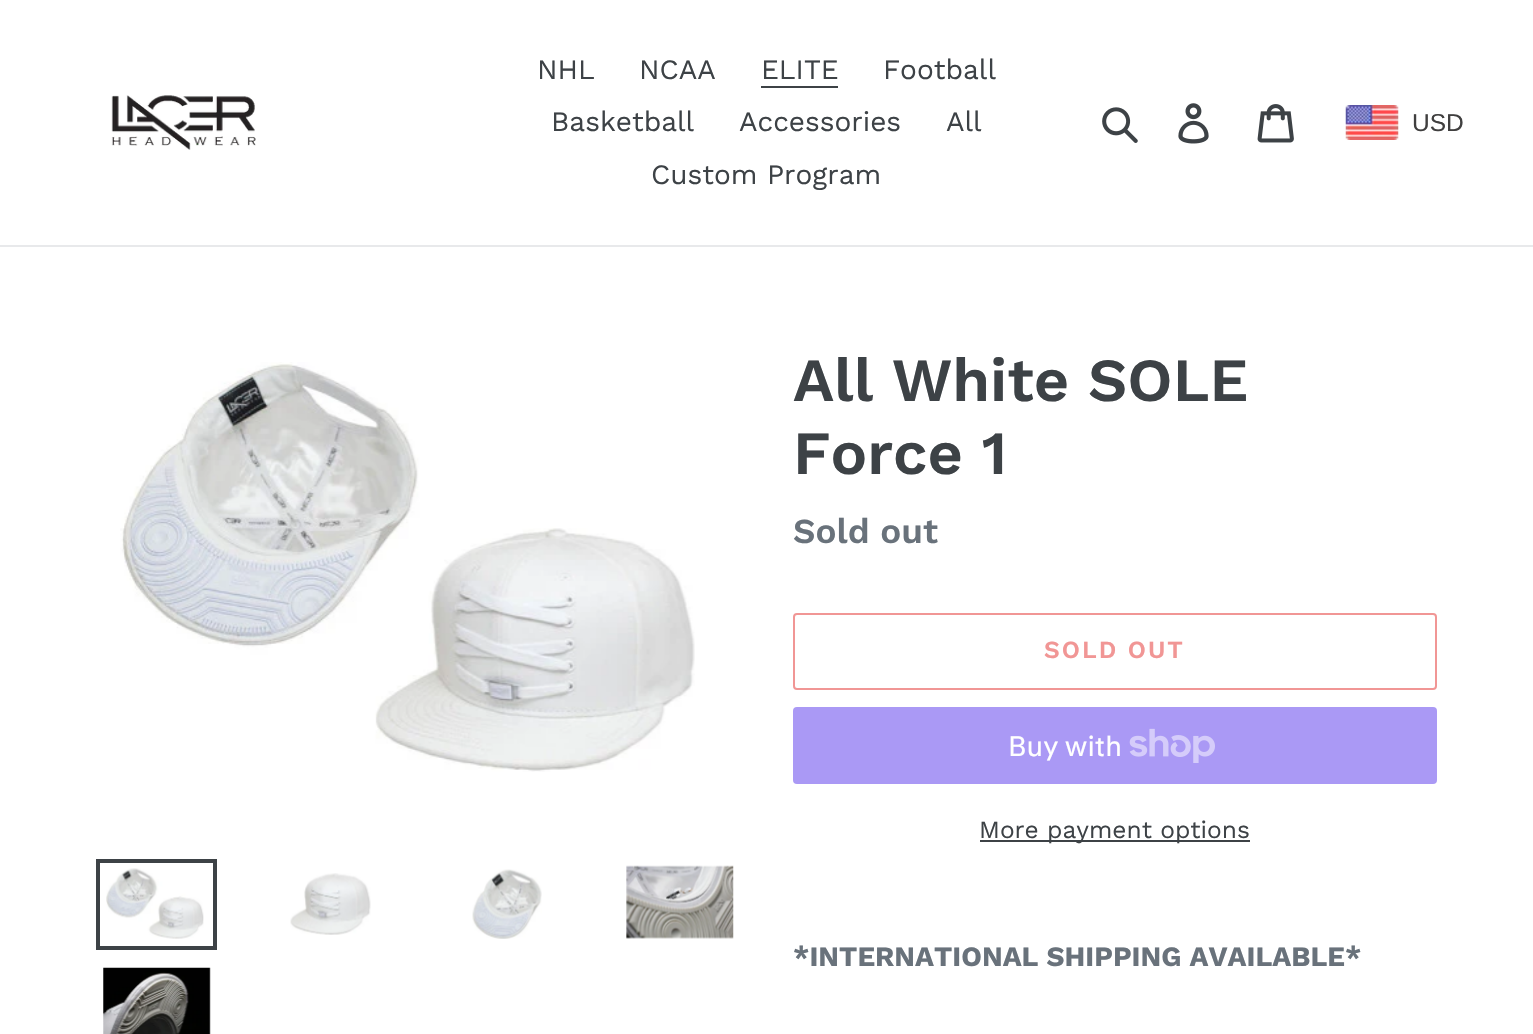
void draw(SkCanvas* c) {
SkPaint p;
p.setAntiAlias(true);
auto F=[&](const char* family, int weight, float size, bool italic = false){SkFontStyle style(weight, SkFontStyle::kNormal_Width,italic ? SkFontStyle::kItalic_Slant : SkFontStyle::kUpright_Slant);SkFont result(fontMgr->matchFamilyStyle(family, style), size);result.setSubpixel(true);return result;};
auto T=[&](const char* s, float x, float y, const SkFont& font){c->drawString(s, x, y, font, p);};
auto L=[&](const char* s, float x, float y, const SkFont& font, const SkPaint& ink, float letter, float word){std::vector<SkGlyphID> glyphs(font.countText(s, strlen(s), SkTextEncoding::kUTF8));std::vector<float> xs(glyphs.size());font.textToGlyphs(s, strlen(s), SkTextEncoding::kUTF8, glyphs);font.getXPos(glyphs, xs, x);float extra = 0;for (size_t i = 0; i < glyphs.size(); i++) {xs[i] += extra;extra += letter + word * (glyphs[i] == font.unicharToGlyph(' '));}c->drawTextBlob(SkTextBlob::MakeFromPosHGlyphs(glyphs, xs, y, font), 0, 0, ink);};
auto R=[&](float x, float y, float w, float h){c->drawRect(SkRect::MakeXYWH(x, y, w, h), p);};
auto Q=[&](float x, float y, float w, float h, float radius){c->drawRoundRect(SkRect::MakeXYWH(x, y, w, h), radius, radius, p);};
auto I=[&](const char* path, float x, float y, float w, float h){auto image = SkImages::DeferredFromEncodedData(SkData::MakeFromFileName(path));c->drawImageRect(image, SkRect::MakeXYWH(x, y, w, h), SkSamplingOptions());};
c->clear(0xffffffff);
p.setColor(0xffe8e9eb);
R(0,245,1533,2);
I("1.png",111,95,145,55);
auto f1 = F("Work Sans",400,28);
p.setColor(0xff3d4246);
T("NHL",537,79,f1);
T("NCAA",639,79,f1);
T("ELITE",761,79,f1);
R(761,86,77,2);
T("Football",883,79,f1);
T("Basketball",551,131,f1);
T("Accessories",739,131,f1);
T("All",946,131,f1);
T("Custom Program",651,184,f1);
I("2.png",1102,107,36,36);
I("3.png",1178,103,31,41);
I("4.png",1257,104,37,39);
I("5.png",1345,105,54,35);
auto f2 = F("Liberation Sans",400,24.5);
p.setColor(0xff403f3f);
T("USD",1412,131,f2);
I("6.png",120,362,575,410);
p.setStroke(true);
p.setStrokeWidth(4);
p.setColor(0xff3d4246);
c->drawRect(SkRect::MakeXYWH(98,861,117,87),p);
I("7.png",106,868,98,71);
I("8.png",290,873,81,62);
I("9.png",472,869,70,70);
I("10.png",626,865,108,74);
I("11.png",103,967,108,67);
auto f3 = F("Work Sans",600,61.25);
p.setStroke(false);
T("All White SOLE",793,401,f3);
T("Force 1",793,474,f3);
auto f4 = F("Work Sans",600,35);
p.setColor(0xff69727b);
T("Sold out",793,543,f4);
p.setStroke(true);
p.setStrokeWidth(2);
p.setColor(0xfff19695);
c->drawRoundRect(SkRect::MakeXYWH(794,614,642,75),3,3,p);
auto f5 = F("Work Sans",600,24.5);
p.setStroke(false);
L("SOLD OUT",1044,658,f5,p,2,0);
p.setColor(0xffaa99f5);
Q(793,707,644,77,4);
auto f6 = F("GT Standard",400,28);
p.setColor(0xffffffff);
T("Buy with",1008,756,f6);
I("12.png",1129,728,86,35);
p.setColor(0xff3d4246);
R(980,840,270,2);
auto f7 = F("Work Sans",400,24.5);
T("More payment options",979,838,f7);
auto f8 = F("Work Sans",700,28);
p.setColor(0xff69727b);
T("*INTERNATIONAL SHIPPING AVAILABLE*",793,966,f8);
}
